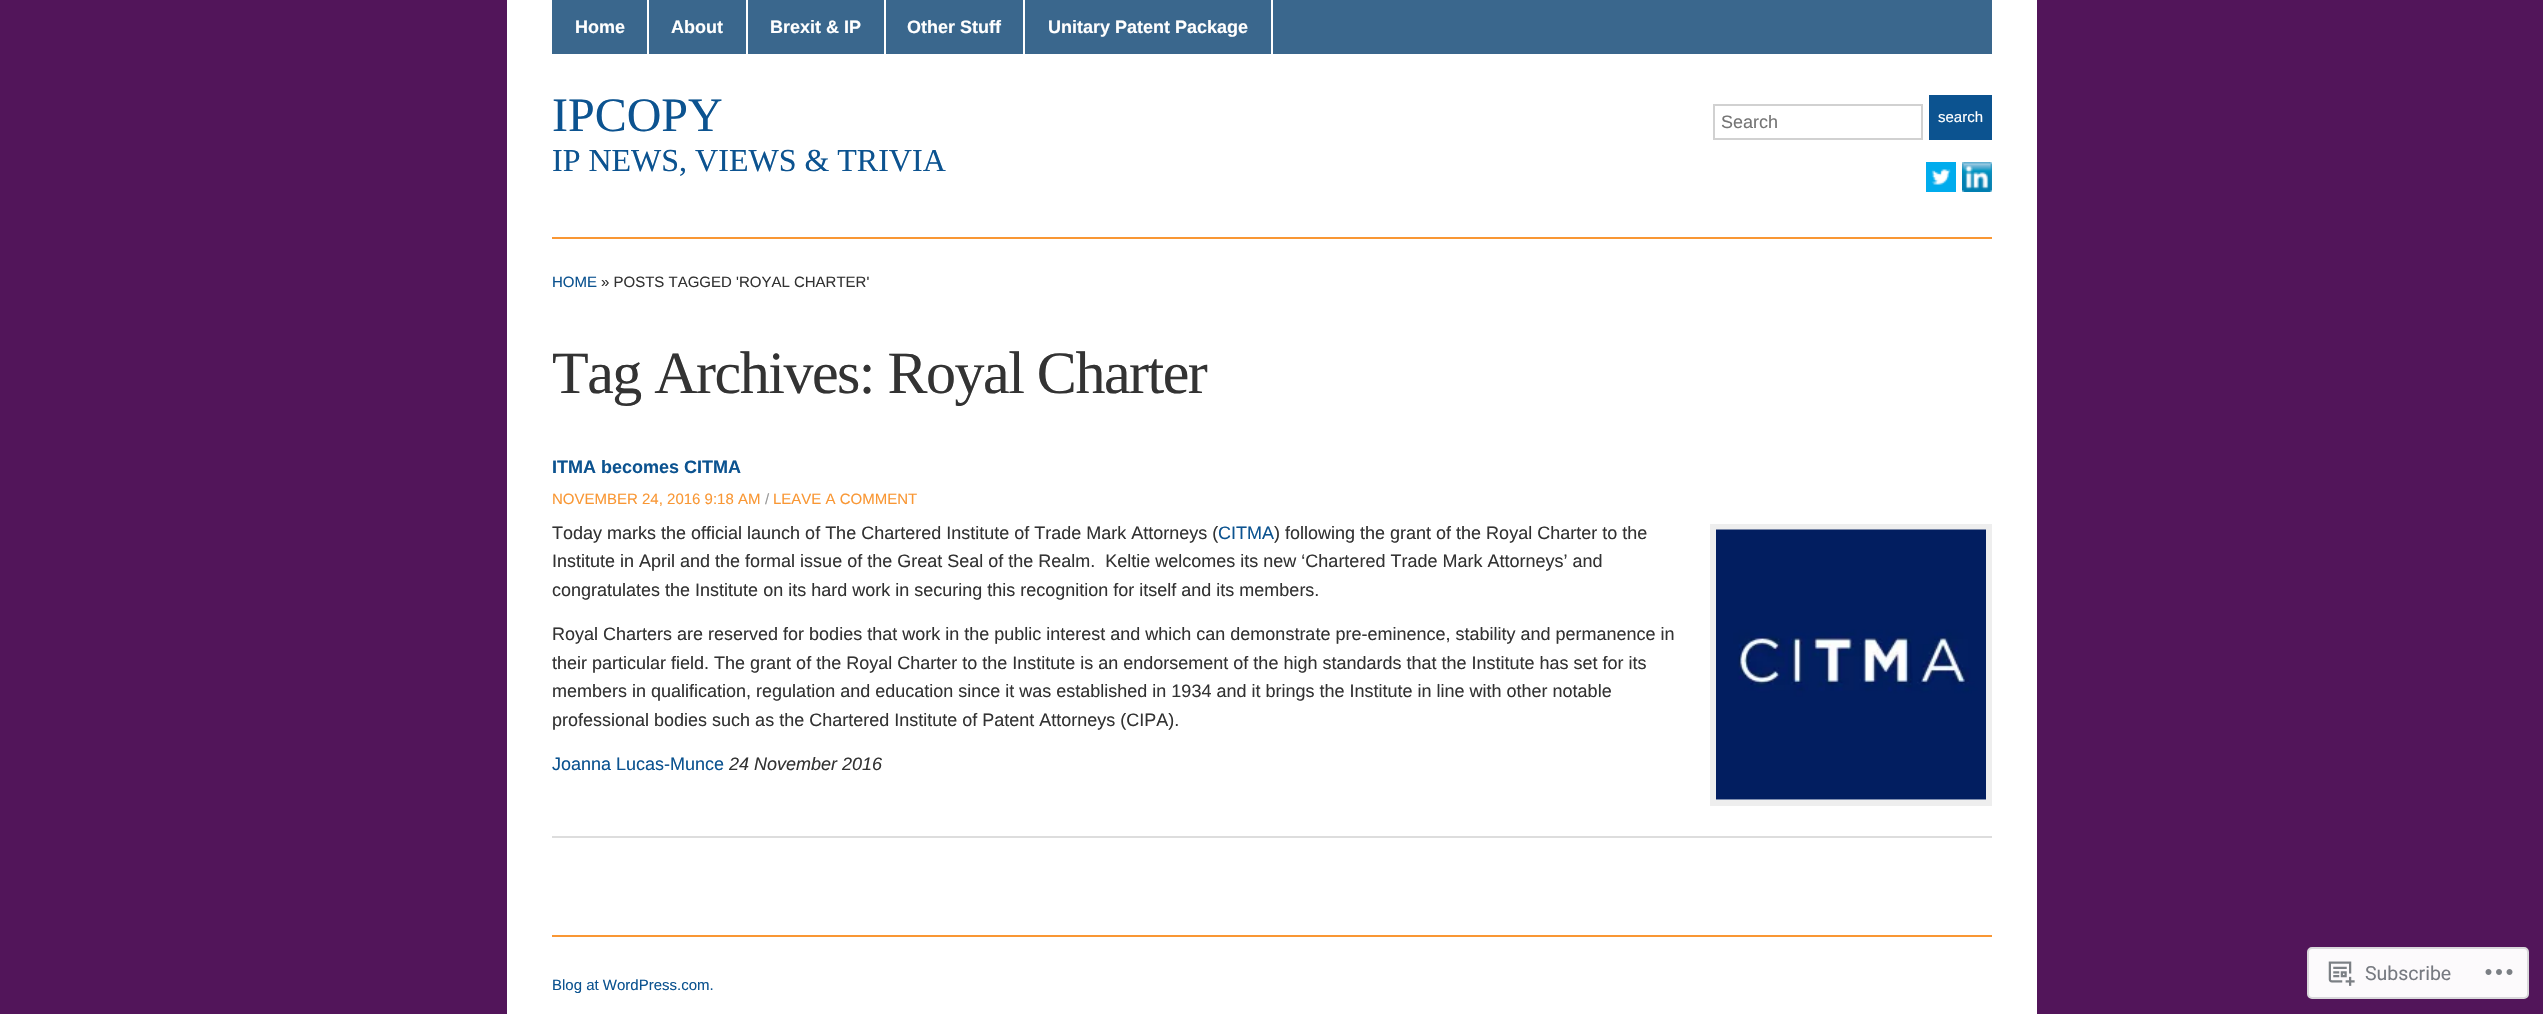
void draw(SkCanvas* c) {
SkPaint p;
p.setAntiAlias(true);
auto F=[&](const char* family, int weight, float size, bool italic = false){SkFontStyle style(weight, SkFontStyle::kNormal_Width,italic ? SkFontStyle::kItalic_Slant : SkFontStyle::kUpright_Slant);SkFont result(fontMgr->matchFamilyStyle(family, style), size);result.setSubpixel(true);return result;};
auto T=[&](const char* s, float x, float y, const SkFont& font){c->drawString(s, x, y, font, p);};
auto L=[&](const char* s, float x, float y, const SkFont& font, const SkPaint& ink, float letter, float word){std::vector<SkGlyphID> glyphs(font.countText(s, strlen(s), SkTextEncoding::kUTF8));std::vector<float> xs(glyphs.size());font.textToGlyphs(s, strlen(s), SkTextEncoding::kUTF8, glyphs);font.getXPos(glyphs, xs, x);float extra = 0;for (size_t i = 0; i < glyphs.size(); i++) {xs[i] += extra;extra += letter + word * (glyphs[i] == font.unicharToGlyph(' '));}c->drawTextBlob(SkTextBlob::MakeFromPosHGlyphs(glyphs, xs, y, font), 0, 0, ink);};
auto R=[&](float x, float y, float w, float h){c->drawRect(SkRect::MakeXYWH(x, y, w, h), p);};
auto I=[&](const char* path, float x, float y, float w, float h){auto image = SkImages::DeferredFromEncodedData(SkData::MakeFromFileName(path));c->drawImageRect(image, SkRect::MakeXYWH(x, y, w, h), SkSamplingOptions());};
c->clear(0xff52155a);
p.setColor(0xffffffff);
R(507,0,1530,1014);
p.setColor(0xff3a678d);
R(552,0,1440,54);
p.setColor(0xffffffff);
R(647,0,2,54);
auto f1 = F("Liberation Sans",700,18);
T("Home",575,33,f1);
R(746,0,2,54);
T("About",671,33,f1);
R(884,0,2,54);
T("Brexit & IP",770,33,f1);
R(1023,0,2,54);
T("Other Stuff",907,33,f1);
R(1271,0,2,54);
T("Unitary Patent Package",1048,33,f1);
auto f2 = F("Liberation Serif",400,48);
p.setColor(0xff0c5390);
T("IPCOPY",552,131,f2);
auto f3 = F("Liberation Serif",400,32);
T("IP NEWS, VIEWS & TRIVIA",552,171,f3);
p.setStroke(true);
p.setStrokeWidth(2);
p.setColor(0xffd1d1d1);
c->drawRect(SkRect::MakeXYWH(1714,105,208,34),p);
auto f4 = F("Liberation Sans",400,18);
p.setStroke(false);
p.setColor(0xff757575);
T("Search",1721,128,f4);
p.setColor(0xff0c5390);
R(1929,95,63,45);
auto f5 = F("Liberation Sans",400,15);
p.setColor(0xffffffff);
T("search",1938,122,f5);
I("1.png",1926,162,30,30);
I("2.png",1962,162,30,30);
p.setColor(0xfff99734);
R(552,237,1440,2);
p.setColor(0xff0c5390);
T("HOME",552,287,f5);
p.setColor(0xff333333);
T("» POSTS TAGGED 'ROYAL CHARTER'",601,287,f5);
auto f6 = F("Liberation Serif",400,60);
L("Tag Archives: Royal Charter",552,393,f6,p,-1.5,0);
p.setColor(0xffdddddd);
R(552,836,1440,2);
p.setColor(0xff0c5390);
T("ITMA becomes CITMA",552,473,f1);
p.setColor(0xfff99734);
T("NOVEMBER 24, 2016 9:18 AM",552,504,f5);
p.setColor(0xff999999);
T("/",765,504,f5);
p.setColor(0xfff99734);
T("LEAVE A COMMENT",773,504,f5);
p.setColor(0xff333333);
T("Today marks the official launch of The Chartered Institute of Trade Mark Attorneys (",552,539,f4);
p.setColor(0xff0c5390);
T("CITMA",1218,539,f4);
p.setColor(0xff333333);
T(") following the grant of the Royal Charter to the",1274,539,f4);
p.setStroke(true);
p.setStrokeWidth(6);
p.setColor(0xffeeeeee);
c->drawRect(SkRect::MakeXYWH(1713,527,276,276),p);
I("3.png",1716,529,270,271);
p.setStroke(false);
p.setColor(0xff333333);
T("Institute in April and the formal issue of the Great Seal of the Realm.  Keltie welcomes its new ‘Chartered Trade Mark Attorneys’ and",552,567,f4);
T("congratulates the Institute on its hard work in securing this recognition for itself and its members.",552,596,f4);
T("Royal Charters are reserved for bodies that work in the public interest and which can demonstrate pre-eminence, stability and permanence in",552,640,f4);
T("their particular field. The grant of the Royal Charter to the Institute is an endorsement of the high standards that the Institute has set for its",552,669,f4);
T("members in qualification, regulation and education since it was established in 1934 and it brings the Institute in line with other notable",552,697,f4);
T("professional bodies such as the Chartered Institute of Patent Attorneys (CIPA).",552,726,f4);
p.setColor(0xff0c5390);
T("Joanna Lucas-Munce",552,770,f4);
auto f7 = F("Liberation Sans",400,18,true);
p.setColor(0xff333333);
T("24 November 2016",729,770,f7);
p.setColor(0xfff99734);
R(552,935,1440,2);
p.setColor(0xff0c5390);
T("Blog at WordPress.com.",552,990,f5);
p.setColor(0xfffcfafc);
c->drawRoundRect(SkRect::MakeXYWH(2308,948,220,50),4,4,p);
p.setStroke(true);
p.setStrokeWidth(2);
p.setColor(0xffd9d8db);
c->drawRoundRect(SkRect::MakeXYWH(2308,948,220,50),4,4,p);
I("4.png",2328,961,27,25);
auto f8 = F("Roboto",400,19.5);
p.setStroke(false);
p.setColor(0xff777a81);
T("Subscribe",2365,980,f8);
I("5.png",2485,969,28,6);
}
